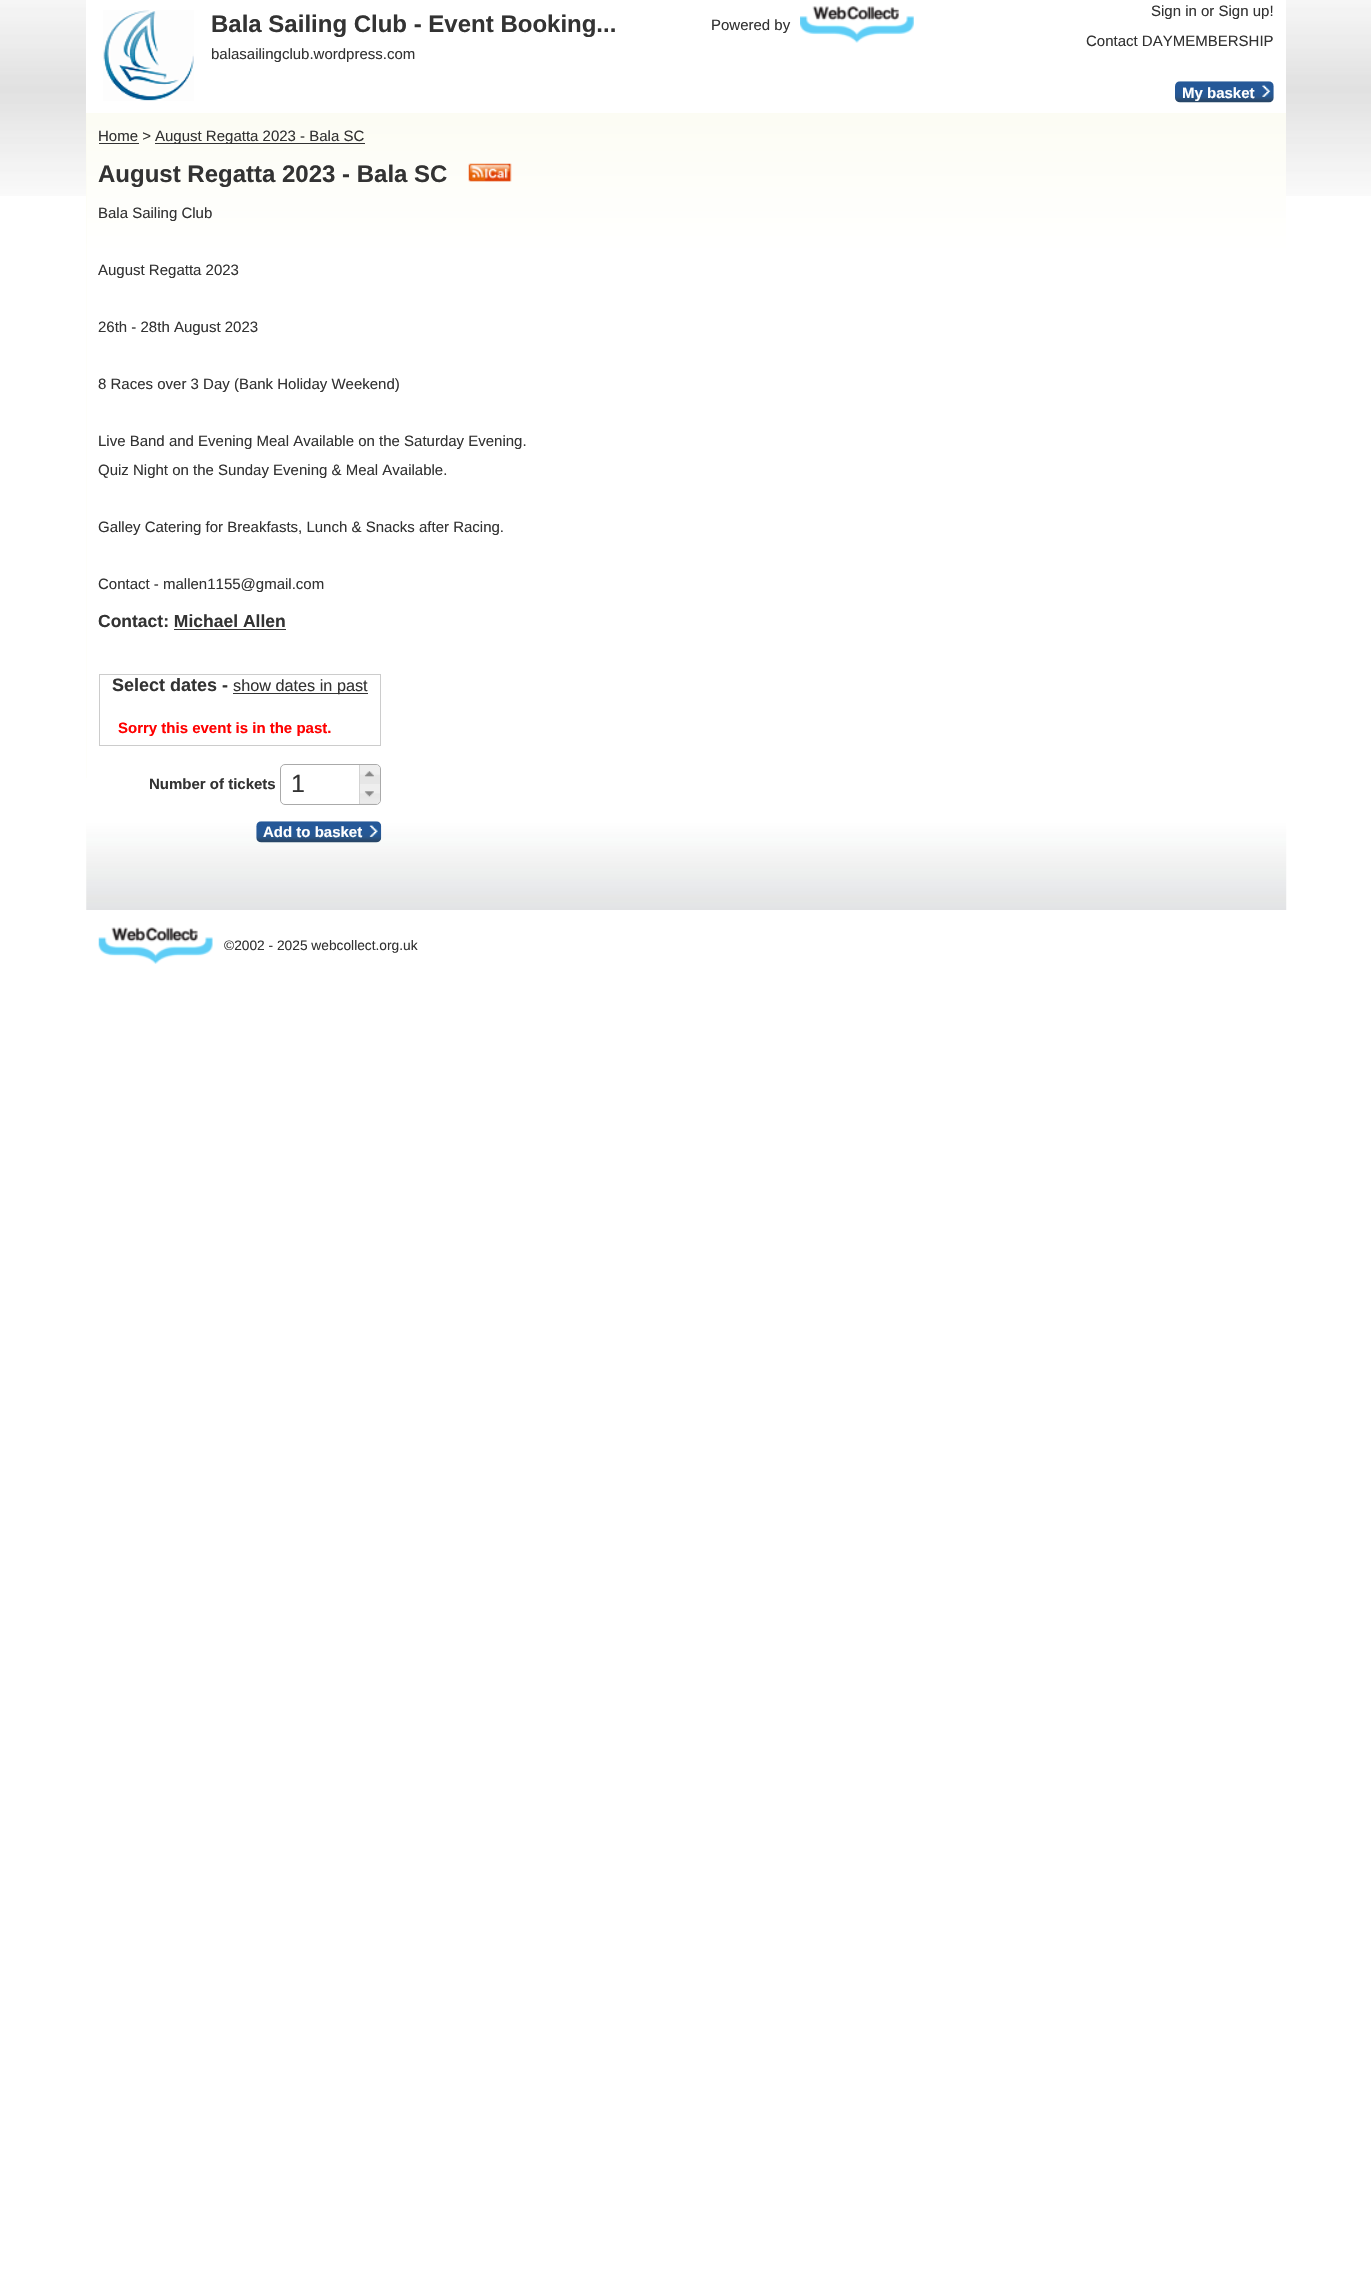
void draw(SkCanvas* c) {
SkPaint p;
p.setAntiAlias(true);
auto F=[&](const char* family, int weight, float size, bool italic = false){SkFontStyle style(weight, SkFontStyle::kNormal_Width,italic ? SkFontStyle::kItalic_Slant : SkFontStyle::kUpright_Slant);SkFont result(fontMgr->matchFamilyStyle(family, style), size);result.setSubpixel(true);return result;};
auto T=[&](const char* s, float x, float y, const SkFont& font){c->drawString(s, x, y, font, p);};
auto R=[&](float x, float y, float w, float h){c->drawRect(SkRect::MakeXYWH(x, y, w, h), p);};
auto I=[&](const char* path, float x, float y, float w, float h){auto image = SkImages::DeferredFromEncodedData(SkData::MakeFromFileName(path));c->drawImageRect(image, SkRect::MakeXYWH(x, y, w, h), SkSamplingOptions());};
auto P=[&](const char* data, bool evenOdd = false){SkPath result = *SkParsePath::FromSVGString(data);if (evenOdd) result.setFillType(SkPathFillType::kEvenOdd);return result;};
c->clear(0xffffffff);
I("1.png",0,0,1371,196);
p.setColor(0xffffffff);
R(86,0,1200,113);
I("2.png",103,10,91,91);
auto f1 = F("Liberation Sans",700,24);
p.setColor(0xff333333);
T("Bala Sailing Club - Event Booking...",211,32,f1);
auto f2 = F("Liberation Sans",400,15);
T("balasailingclub.wordpress.com",211,59,f2);
T("Sign in or Sign up!",1151,16,f2);
T("Powered by",711,30,f2);
I("3.png",800,6,114,37);
T("Contact DAYMEMBERSHIP",1086,46,f2);
I("4.png",1175,81,99,22);
auto f3 = F("Liberation Sans",700,15);
p.setColor(0xffffffff);
T("My basket",1182,98,f3);
p.setColor(0xfff9f9e8);
R(86,113,1200,797);
I("5.png",86,113,1200,797);
I("6.png",86,778,1201,132);
p.setColor(0xff333333);
T("Home >",98,141,f2);
R(99,143,40,1);
R(155,143,210,1);
T("August Regatta 2023 - Bala SC",155,141,f2);
T("August Regatta 2023 - Bala SC",98,182,f1);
I("7.png",468,163,44,19);
T("Bala Sailing Club",98,218,f2);
T("August Regatta 2023",98,275,f2);
T("26th - 28th August 2023",98,332,f2);
T("8 Races over 3 Day (Bank Holiday Weekend)",98,389,f2);
T("Live Band and Evening Meal Available on the Saturday Evening.",98,446,f2);
T("Quiz Night on the Sunday Evening & Meal Available.",98,475,f2);
T("Galley Catering for Breakfasts, Lunch & Snacks after Racing.",98,532,f2);
T("Contact - mallen1155@gmail.com",98,589,f2);
auto f4 = F("Liberation Sans",700,17.5);
T("Contact: Michael Allen",98,627,f4);
R(174,629,112,1);
p.setStroke(true);
p.setStrokeWidth(1);
p.setColor(0xffcccccc);
c->drawRect(SkRect::MakeXYWH(99.5,674.5,281,71),p);
auto f5 = F("Liberation Sans",700,18);
p.setStroke(false);
p.setColor(0xff333333);
T("Select dates -",112,691,f5);
R(233,693,135,1);
auto f6 = F("Liberation Sans",400,16.25);
T("show dates in past",233,691,f6);
p.setColor(0xffff0000);
T("Sorry this event is in the past.",118,733,f3);
p.setColor(0xff333333);
T("Number of tickets",149,789,f3);
p.setStroke(true);
p.setColor(0xffaaaaaa);
c->drawRoundRect(SkRect::MakeXYWH(280.5,764.5,100,40),4.5,4.5,p);
auto f7 = F("Liberation Sans",400,25);
p.setStroke(false);
p.setColor(0xff333333);
T("1",291,792,f7);
p.setColor(0xffe6e6e6);
c->drawPath(P("M359 765h16c3 0 5 2 5 5v14h-21z"),p);
I("8.png",360,765,20,10);
p.setColor(0xffd3d3d3);
R(359,765,1,19);
I("9.png",364,771,10,6);
p.setColor(0xffe6e6e6);
c->drawPath(P("M359 784h21v15c0 3-2 5-5 5h-16z"),p);
I("10.png",360,784,20,19);
p.setColor(0xffd3d3d3);
R(359,784,1,20);
I("11.png",364,791,10,6);
I("12.png",256,821,126,22);
p.setColor(0xffffffff);
T("Add to basket",263,837,f3);
I("13.png",98,927,115,37);
auto f8 = F("Liberation Sans",400,13.75);
p.setColor(0xff333333);
T("©2002 - 2025 webcollect.org.uk",224,950,f8);
}
